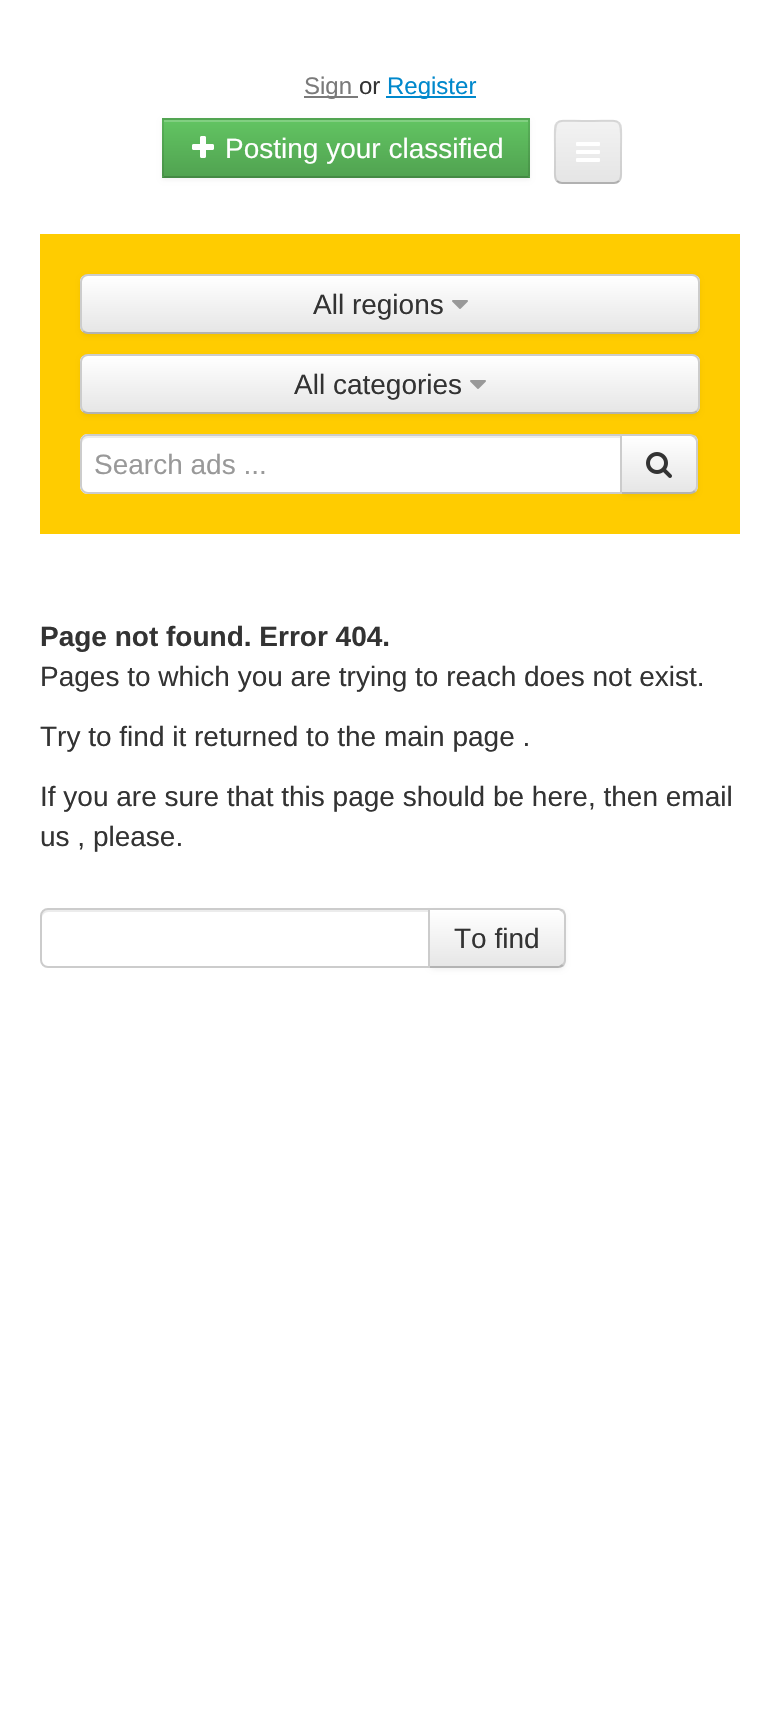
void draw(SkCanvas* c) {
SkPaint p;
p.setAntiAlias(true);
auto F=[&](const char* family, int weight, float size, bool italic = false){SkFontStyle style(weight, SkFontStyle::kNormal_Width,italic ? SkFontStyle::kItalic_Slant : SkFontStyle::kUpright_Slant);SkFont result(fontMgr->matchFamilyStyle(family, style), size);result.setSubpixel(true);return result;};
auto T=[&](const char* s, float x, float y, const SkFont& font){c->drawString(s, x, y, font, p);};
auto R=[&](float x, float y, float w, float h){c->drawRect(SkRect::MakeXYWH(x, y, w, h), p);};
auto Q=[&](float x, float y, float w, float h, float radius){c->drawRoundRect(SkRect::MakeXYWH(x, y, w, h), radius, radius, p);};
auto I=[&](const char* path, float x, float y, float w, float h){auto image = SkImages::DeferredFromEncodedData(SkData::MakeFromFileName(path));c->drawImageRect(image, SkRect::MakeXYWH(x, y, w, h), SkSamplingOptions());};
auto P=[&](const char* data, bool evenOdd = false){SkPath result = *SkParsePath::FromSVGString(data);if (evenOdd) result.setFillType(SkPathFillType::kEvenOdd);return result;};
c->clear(0xffffffff);
p.setColor(0xff7a7a7a);
R(304,96,54,2);
auto f1 = F("Liberation Sans",400,24);
T("Sign",304,94,f1);
p.setColor(0xff333333);
T("or",359,94,f1);
p.setColor(0xff0088cc);
R(386,96,90,2);
T("Register",387,94,f1);
p.setColor(0x0d000000);
p.setMaskFilter(SkMaskFilter::MakeBlur(kNormal_SkBlurStyle, 2));
c->drawRect(SkRect::MakeXYWH(162,120,368,60),p);
p.setMaskFilter(nullptr);
p.setColor(0xff5bb75b);
R(162,118,368,60);
{
const SkColor colors[] = {0xff62c462,0xff51a351};
const float stops[] = {0,1};
const SkPoint ends[] = {{346,120}, {346,176}};
p.setShader(SkGradientShader::MakeLinear(ends, colors, stops, 2, SkTileMode::kClamp));
p.setAlpha(255);
}
R(162,120,368,56);
p.setShader(nullptr);
p.setColor(0xff81cf81);
R(164,120,364,2);
p.setColor(0xff52a552);
c->drawPath(P("M162 118h368l-2 2h-364z"),p);
p.setColor(0x1a000000);
c->drawPath(P("M530 118v60l-2-2v-56z"),p);
p.setColor(0x40000000);
c->drawPath(P("M530 178h-368l2-2h364z"),p);
p.setColor(0x1a000000);
c->drawPath(P("M162 178v-60l2 2v56z"),p);
I("1.png",192,136,22,22);
auto f2 = F("Liberation Sans",400,28);
p.setColor(0xffffffff);
T("Posting your classified",225,158,f2);
p.setColor(0xffededed);
Q(554,120,68,64,8);
c->save();
c->clipPath(P("M562 120h52c4.5 0 8 3.5 8 8v48c0 4.5-3.5 8-8 8h-52c-4.5 0-8-3.5-8-8v-48c0-4.5 3.5-8 8-8z"),true);
{
const SkColor colors[] = {0xfff2f2f2,0xffe5e5e5};
const float stops[] = {0,1};
const SkPoint ends[] = {{588,122}, {588,182}};
p.setShader(SkGradientShader::MakeLinear(ends, colors, stops, 2, SkTileMode::kClamp));
p.setAlpha(255);
}
R(554,122,68,60);
c->restore();
p.setStroke(true);
p.setStrokeWidth(2);
p.setShader(nullptr);
p.setColor(0x40000000);
c->drawPath(P("M619 181c-1.5 1.5-3 2-5 2h-52c-2 0-3.5-.5-5-2"),p);
p.setColor(0x1a000000);
c->drawPath(P("M557 181c-3-3.5-2-9-2-13v-16c0-37-4.5-31 33-31c37.5 0 33-6 33 31v16c0 4 1 9.5-2 13"),p);
I("2.png",576,142,24,20);
p.setStroke(false);
p.setColor(0xffffcc00);
R(40,234,700,300);
p.setColor(0x0d000000);
p.setMaskFilter(SkMaskFilter::MakeBlur(kNormal_SkBlurStyle, 2));
c->drawRoundRect(SkRect::MakeXYWH(80,276,620,60),8,8,p);
p.setMaskFilter(nullptr);
c->save();
c->clipPath(P("M88 274h604c4.5 0 8 3.5 8 8v44c0 4.5-3.5 8-8 8h-604c-4.5 0-8-3.5-8-8v-44c0-4.5 3.5-8 8-8z"),true);
{
const SkColor colors[] = {0xffffffff,0xffe6e6e6};
const float stops[] = {0,1};
const SkPoint ends[] = {{390,276}, {390,332}};
p.setShader(SkGradientShader::MakeLinear(ends, colors, stops, 2, SkTileMode::kClamp));
p.setAlpha(255);
}
R(80,276,620,56);
c->restore();
p.setStroke(true);
p.setShader(nullptr);
p.setColor(0xffb3b3b3);
c->drawPath(P("M697 331c-1.5 1.5-3 2-5 2h-604c-2 0-3.5-.5-5-2"),p);
p.setColor(0xffcccccc);
c->drawPath(P("M83 331c-1.5-1.5-2-3-2-5v-44c0-2 .5-3.5 2-5c1.5-1.5 3-2 5-2h604c2 0 3.5 .5 5 2c1.5 1.5 2 3 2 5v44c0 2-.5 3.5-2 5"),p);
p.setStroke(false);
p.setColor(0xff333333);
T("All regions",313,314,f2);
I("3.png",452,300,16,9);
p.setColor(0x0d000000);
p.setMaskFilter(SkMaskFilter::MakeBlur(kNormal_SkBlurStyle, 2));
c->drawRoundRect(SkRect::MakeXYWH(80,356,620,60),8,8,p);
p.setMaskFilter(nullptr);
c->save();
c->clipPath(P("M88 354h604c4.5 0 8 3.5 8 8v44c0 4.5-3.5 8-8 8h-604c-4.5 0-8-3.5-8-8v-44c0-4.5 3.5-8 8-8z"),true);
{
const SkColor colors[] = {0xffffffff,0xffe6e6e6};
const float stops[] = {0,1};
const SkPoint ends[] = {{390,356}, {390,412}};
p.setShader(SkGradientShader::MakeLinear(ends, colors, stops, 2, SkTileMode::kClamp));
p.setAlpha(255);
}
R(80,356,620,56);
c->restore();
p.setStroke(true);
p.setShader(nullptr);
p.setColor(0xffb3b3b3);
c->drawPath(P("M697 411c-1.5 1.5-3 2-5 2h-604c-2 0-3.5-.5-5-2"),p);
p.setColor(0xffcccccc);
c->drawPath(P("M83 411c-1.5-1.5-2-3-2-5v-44c0-2 .5-3.5 2-5c1.5-1.5 3-2 5-2h604c2 0 3.5 .5 5 2c1.5 1.5 2 3 2 5v44c0 2-.5 3.5-2 5"),p);
p.setStroke(false);
p.setColor(0xff333333);
T("All categories",294,394,f2);
I("3.png",470,380,16,9);
p.setColor(0x0d000000);
p.setMaskFilter(SkMaskFilter::MakeBlur(kNormal_SkBlurStyle, 2));
c->drawRoundRect(SkRect::MakeXYWH(620,436,78,60),8,8,p);
p.setMaskFilter(nullptr);
c->save();
c->clipPath(P("M620 434h70c4.5 0 8 3.5 8 8v44c0 4.5-3.5 8-8 8h-70z"),true);
{
const SkColor colors[] = {0xffffffff,0xffe6e6e6};
const float stops[] = {0,1};
const SkPoint ends[] = {{659,436}, {659,492}};
p.setShader(SkGradientShader::MakeLinear(ends, colors, stops, 2, SkTileMode::kClamp));
p.setAlpha(255);
}
R(622,436,76,56);
c->restore();
p.setShader(nullptr);
p.setColor(0xffcccccc);
c->drawPath(P("M620 434l2 2h68c2 0 3 1 4 2l2-2c-2-1-4-2-6-2z"),p);
c->drawPath(P("M698 486v-44c0-2-1-4-2-6l-2 2c1 1 2 2 2 4v44c0 2-1 3-2 4l2 2c1-2 2-4 2-6z"),p);
p.setColor(0xffb3b3b3);
c->drawPath(P("M690 494c2 0 4-1 6-2l-2-2c-1 1-2 2-4 2h-68l-2 2z"),p);
p.setColor(0xffffffff);
c->drawPath(P("M88 434h534v60h-534c-4.5 0-8-3.5-8-8v-44c0-4.5 3.5-8 8-8z"),p);
p.setColor(0xffececec);
c->drawPath(P("M88 438h532v-2h-532c-3 0-6 3-6 6v2c0-3 3-6 6-6z"),p);
p.setStroke(true);
p.setColor(0xffcccccc);
c->drawPath(P("M88 435h533v58h-533c-4 0-7-3-7-7v-44c0-4 3-7 7-7z"),p);
p.setStroke(false);
p.setColor(0xff999999);
T("Search ads ...",94,474,f2);
I("4.png",646,452,26,26);
auto f3 = F("Liberation Sans",700,28);
p.setColor(0xff333333);
T("Page not found. Error 404.",40,646,f3);
T("Pages to which you are trying to reach does not exist.",40,686,f2);
T("Try to find it returned to the main page .",40,746,f2);
T("If you are sure that this page should be here, then email",40,806,f2);
T("us , please.",40,846,f2);
p.setColor(0x0d000000);
p.setMaskFilter(SkMaskFilter::MakeBlur(kNormal_SkBlurStyle, 2));
c->drawRoundRect(SkRect::MakeXYWH(428,910,138,60),8,8,p);
p.setMaskFilter(nullptr);
c->save();
c->clipPath(P("M428 908h130c4.5 0 8 3.5 8 8v44c0 4.5-3.5 8-8 8h-130z"),true);
{
const SkColor colors[] = {0xffffffff,0xffe6e6e6};
const float stops[] = {0,1};
const SkPoint ends[] = {{497,910}, {497,966}};
p.setShader(SkGradientShader::MakeLinear(ends, colors, stops, 2, SkTileMode::kClamp));
p.setAlpha(255);
}
R(430,910,136,56);
c->restore();
p.setShader(nullptr);
p.setColor(0xffcccccc);
c->drawPath(P("M428 908l2 2h129l3 2l2-2c-2-1-4-2-6-2z"),p);
c->drawPath(P("M566 960v-44c0-2-1-4-2-6l-2 2c1 1 2 2 2 4v44c0 2-1 3-2 4l2 2c1-2 2-4 2-6z"),p);
p.setColor(0xffb3b3b3);
c->drawPath(P("M558 968c2 0 4-1 6-2l-2-2l-3 2h-129l-2 2z"),p);
p.setColor(0xffffffff);
c->drawPath(P("M48 908h382v60h-382c-4.5 0-8-3.5-8-8v-44c0-4.5 3.5-8 8-8z"),p);
p.setColor(0xffececec);
c->drawPath(P("M48 912h380v-2h-380c-5 0-6 4-6 8c0-3 3-6 6-6z"),p);
p.setStroke(true);
p.setColor(0xffcccccc);
c->drawPath(P("M48 909h381v58h-381c-4 0-7-3-7-7v-44c0-4 3-7 7-7z"),p);
p.setStroke(false);
p.setColor(0xff333333);
T("To find",454,948,f2);
}
